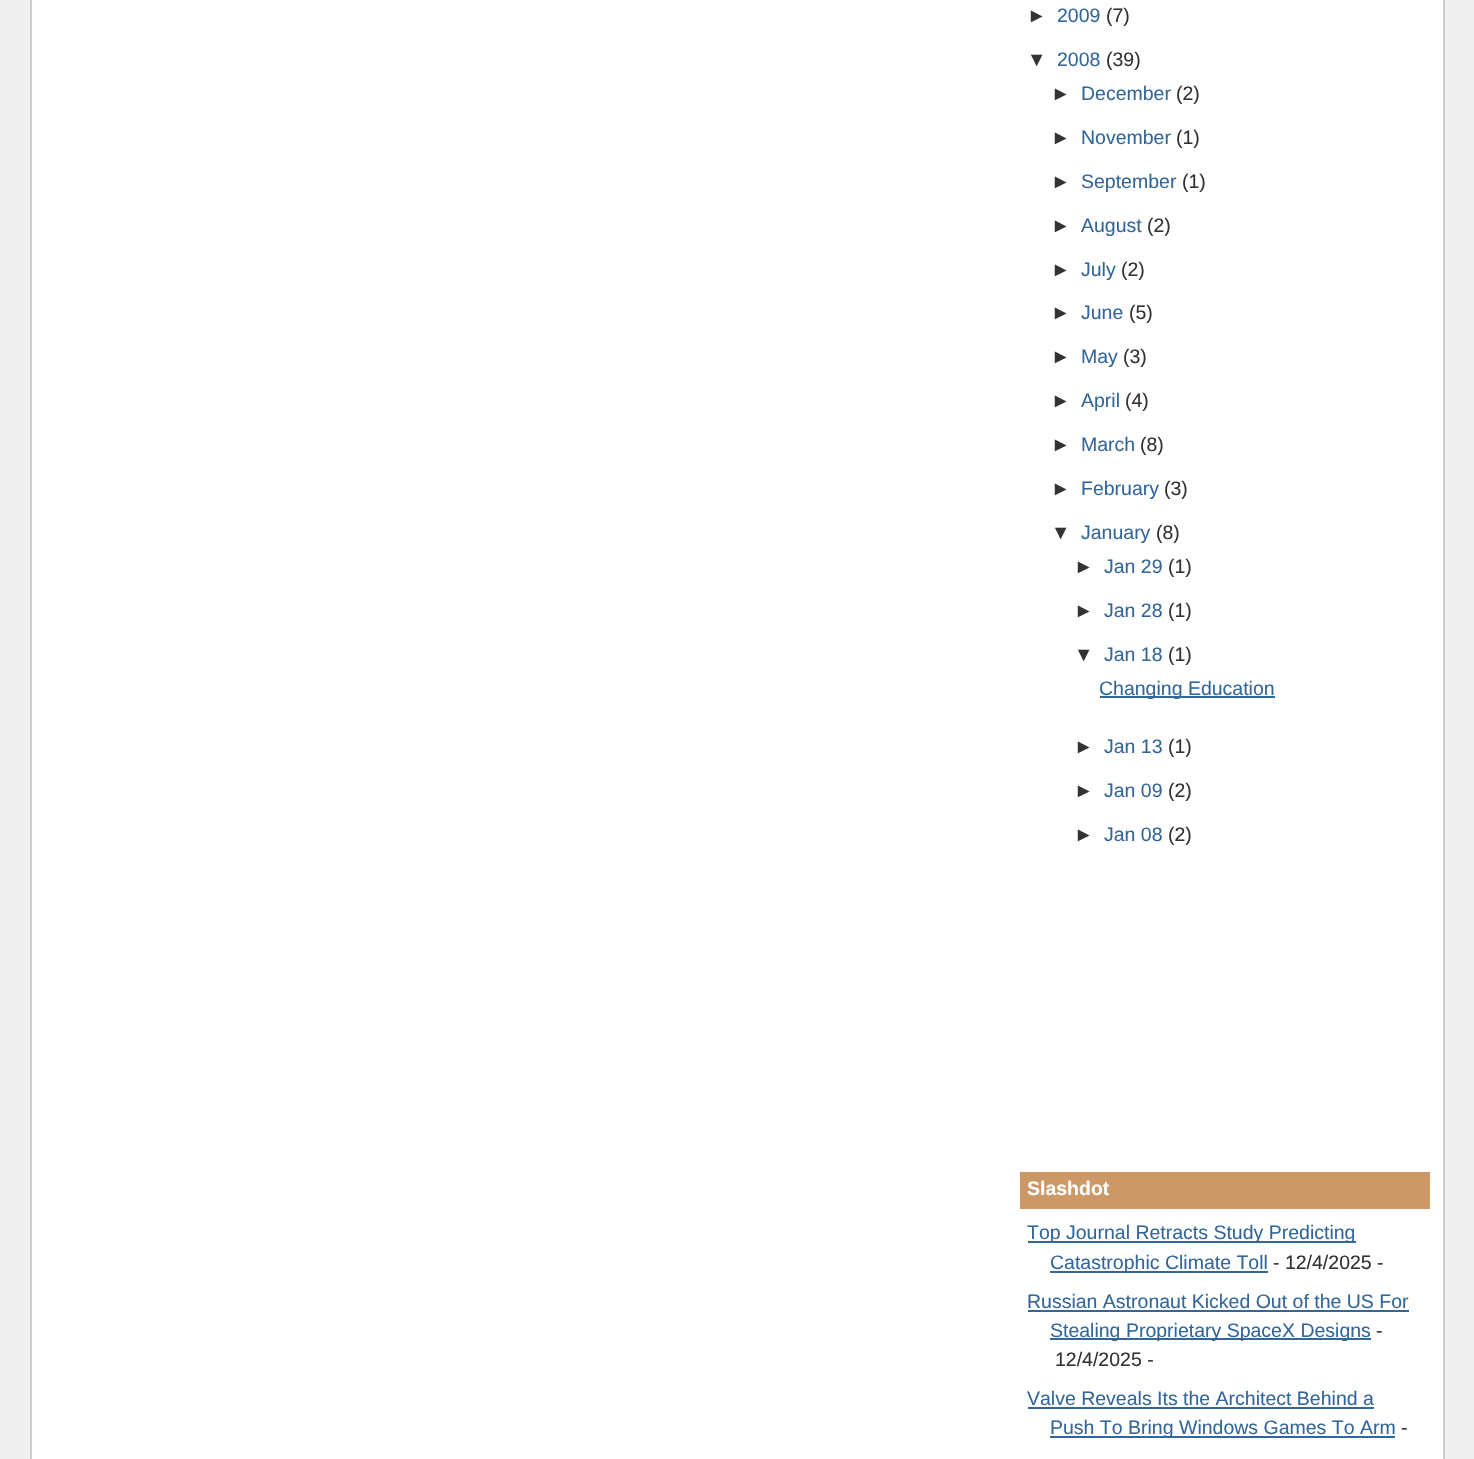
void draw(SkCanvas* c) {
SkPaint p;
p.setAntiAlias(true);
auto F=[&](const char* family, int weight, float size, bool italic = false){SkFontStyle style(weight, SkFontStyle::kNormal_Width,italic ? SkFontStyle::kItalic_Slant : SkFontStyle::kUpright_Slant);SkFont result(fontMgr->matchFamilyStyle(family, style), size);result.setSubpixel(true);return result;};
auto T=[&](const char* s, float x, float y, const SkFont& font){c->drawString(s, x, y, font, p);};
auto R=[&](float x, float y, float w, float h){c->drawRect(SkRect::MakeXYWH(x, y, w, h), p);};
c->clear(0xffefefef);
p.setColor(0xffffffff);
R(32,0,1411,1459);
p.setColor(0xffcccccc);
R(1443,0,2,1459);
R(30,0,2,1459);
auto f1 = F("Liberation Sans",400,19.5);
p.setColor(0xff333333);
T("►",1027,22,f1);
p.setColor(0xff336699);
T("2009",1057,22,f1);
p.setColor(0xff333333);
T("(7)",1106,22,f1);
T("▼",1027,66,f1);
p.setColor(0xff336699);
T("2008",1057,66,f1);
p.setColor(0xff333333);
T("(39)",1106,66,f1);
T("►",1051,100,f1);
p.setColor(0xff336699);
T("December",1081,100,f1);
p.setColor(0xff333333);
T("(2)",1176,100,f1);
T("►",1051,144,f1);
p.setColor(0xff336699);
T("November",1081,144,f1);
p.setColor(0xff333333);
T("(1)",1176,144,f1);
T("►",1051,188,f1);
p.setColor(0xff336699);
T("September",1081,188,f1);
p.setColor(0xff333333);
T("(1)",1182,188,f1);
T("►",1051,232,f1);
p.setColor(0xff336699);
T("August",1081,232,f1);
p.setColor(0xff333333);
T("(2)",1147,232,f1);
T("►",1051,276,f1);
p.setColor(0xff336699);
T("July",1081,276,f1);
p.setColor(0xff333333);
T("(2)",1121,276,f1);
T("►",1051,319,f1);
p.setColor(0xff336699);
T("June",1081,319,f1);
p.setColor(0xff333333);
T("(5)",1129,319,f1);
T("►",1051,363,f1);
p.setColor(0xff336699);
T("May",1081,363,f1);
p.setColor(0xff333333);
T("(3)",1123,363,f1);
T("►",1051,407,f1);
p.setColor(0xff336699);
T("April",1081,407,f1);
p.setColor(0xff333333);
T("(4)",1125,407,f1);
T("►",1051,451,f1);
p.setColor(0xff336699);
T("March",1081,451,f1);
p.setColor(0xff333333);
T("(8)",1140,451,f1);
T("►",1051,495,f1);
p.setColor(0xff336699);
T("February",1081,495,f1);
p.setColor(0xff333333);
T("(3)",1164,495,f1);
T("▼",1051,539,f1);
p.setColor(0xff336699);
T("January",1081,539,f1);
p.setColor(0xff333333);
T("(8)",1156,539,f1);
T("►",1074,573,f1);
p.setColor(0xff336699);
T("Jan 29",1104,573,f1);
p.setColor(0xff333333);
T("(1)",1168,573,f1);
T("►",1074,617,f1);
p.setColor(0xff336699);
T("Jan 28",1104,617,f1);
p.setColor(0xff333333);
T("(1)",1168,617,f1);
T("▼",1074,661,f1);
p.setColor(0xff336699);
T("Jan 18",1104,661,f1);
p.setColor(0xff333333);
T("(1)",1168,661,f1);
p.setColor(0xff336699);
R(1100,696,175,2);
T("Changing Education",1099,695,f1);
p.setColor(0xff333333);
T("►",1074,753,f1);
p.setColor(0xff336699);
T("Jan 13",1104,753,f1);
p.setColor(0xff333333);
T("(1)",1168,753,f1);
T("►",1074,797,f1);
p.setColor(0xff336699);
T("Jan 09",1104,797,f1);
p.setColor(0xff333333);
T("(2)",1168,797,f1);
T("►",1074,841,f1);
p.setColor(0xff336699);
T("Jan 08",1104,841,f1);
p.setColor(0xff333333);
T("(2)",1168,841,f1);
p.setColor(0xffcc9966);
R(1020,1172,410,37);
auto f2 = F("Liberation Sans",700,19.5);
p.setColor(0xffffffff);
T("Slashdot",1027,1195,f2);
p.setColor(0xff336699);
R(1028,1241,328,2);
T("Top Journal Retracts Study Predicting",1027,1239,f1);
R(1050,1271,218,2);
T("Catastrophic Climate Toll",1050,1269,f1);
p.setColor(0xff333333);
T("- 12/4/2025 -",1273,1269,f1);
p.setColor(0xff336699);
T("Russian Astronaut Kicked Out of the US For",1027,1308,f1);
R(1028,1310,381,2);
R(1050,1338,321,2);
T("Stealing Proprietary SpaceX Designs",1050,1337,f1);
p.setColor(0xff333333);
T("-",1376,1337,f1);
T("12/4/2025 -",1055,1366,f1);
p.setColor(0xff336699);
T("Valve Reveals Its the Architect Behind a",1027,1405,f1);
R(1028,1407,346,2);
R(1050,1436,345,2);
T("Push To Bring Windows Games To Arm",1050,1434,f1);
p.setColor(0xff333333);
T("-",1401,1434,f1);
}
